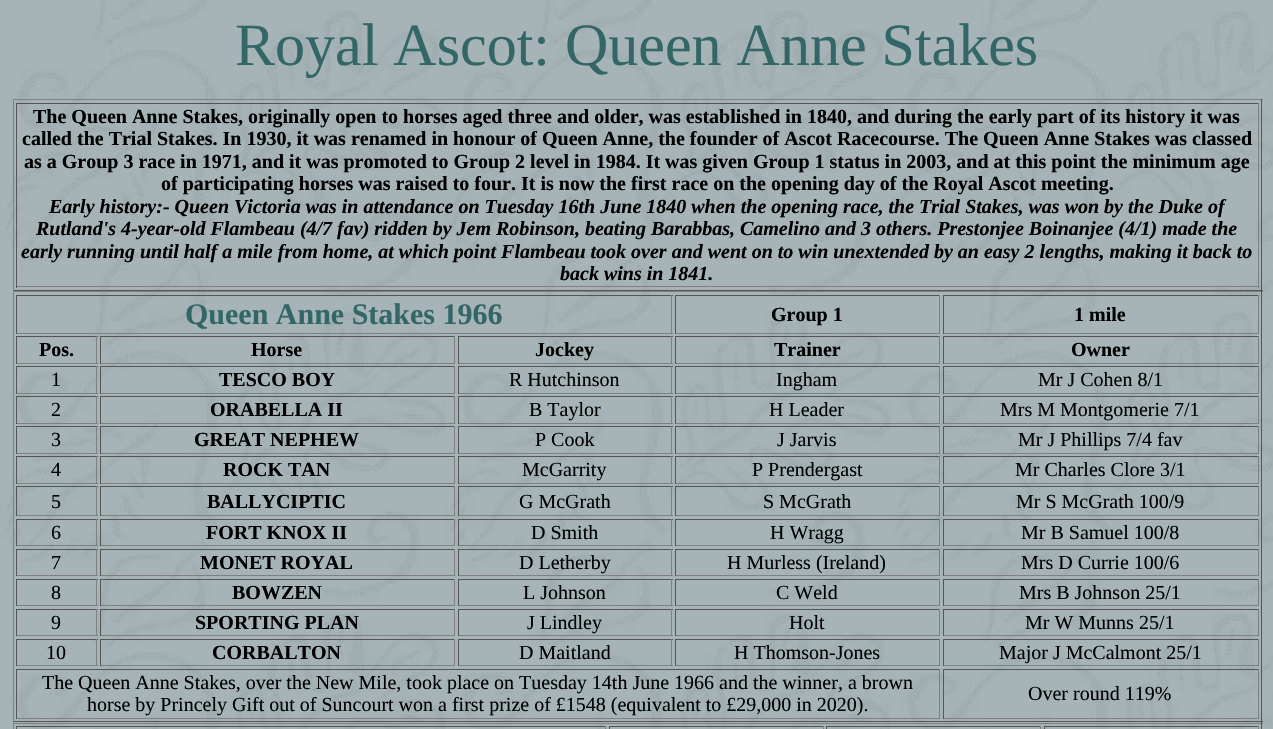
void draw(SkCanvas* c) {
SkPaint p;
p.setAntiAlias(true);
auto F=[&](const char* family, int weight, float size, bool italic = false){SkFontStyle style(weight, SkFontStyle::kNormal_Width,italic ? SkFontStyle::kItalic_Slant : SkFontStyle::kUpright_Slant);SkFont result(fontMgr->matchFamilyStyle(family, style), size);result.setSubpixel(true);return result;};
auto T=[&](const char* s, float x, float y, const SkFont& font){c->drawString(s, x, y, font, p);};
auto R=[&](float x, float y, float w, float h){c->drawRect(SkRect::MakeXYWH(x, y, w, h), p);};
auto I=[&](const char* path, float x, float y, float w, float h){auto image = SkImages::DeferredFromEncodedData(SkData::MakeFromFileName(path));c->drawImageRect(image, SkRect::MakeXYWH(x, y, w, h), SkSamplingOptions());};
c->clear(0xffffffff);
I("1.png",0,0,1273,729);
auto f1 = F("Liberation Serif",400,60);
p.setColor(0xff336666);
T("Royal Ascot: Queen Anne Stakes",235,65,f1);
p.setColor(0xff808080);
R(13,99,1250,1);
p.setColor(0xff555555);
R(1261,99,1,192);
R(13,290,1250,1);
p.setColor(0xff808080);
R(13,99,1,192);
p.setColor(0xff555555);
R(16,103,1243,1);
p.setColor(0xff808080);
R(1258,103,1,185);
R(16,286,1243,1);
p.setColor(0xff555555);
R(16,103,1,185);
auto f2 = F("Liberation Serif",700,20);
p.setColor(0xff000000);
T("The Queen Anne Stakes, originally open to horses aged three and older, was established in 1840, and during the early part of its history it was",33,123,f2);
T("called the Trial Stakes. In 1930, it was renamed in honour of Queen Anne, the founder of Ascot Racecourse. The Queen Anne Stakes was classed",22,145,f2);
T("as a Group 3 race in 1971, and it was promoted to Group 2 level in 1984. It was given Group 1 status in 2003, and at this point the minimum age",24,168,f2);
T("of participating horses was raised to four. It is now the first race on the opening day of the Royal Ascot meeting.",161,190,f2);
auto f3 = F("Liberation Serif",700,20,true);
T("Early history:- Queen Victoria was in attendance on Tuesday 16th June 1840 when the opening race, the Trial Stakes, was won by the Duke of",49,213,f3);
T("Rutland's 4-year-old Flambeau (4/7 fav) ridden by Jem Robinson, beating Barabbas, Camelino and 3 others. Prestonjee Boinanjee (4/1) made the",36,235,f3);
T("early running until half a mile from home, at which point Flambeau took over and went on to win unextended by an easy 2 lengths, making it back to",21,258,f3);
T("back wins in 1841.",560,280,f3);
p.setColor(0xff808080);
R(13,291,1250,1);
p.setColor(0xff555555);
R(1261,291,1,432);
R(13,721,1250,1);
p.setColor(0xff808080);
R(13,291,1,432);
p.setColor(0xff555555);
R(16,295,657,1);
p.setColor(0xff808080);
R(671,295,1,39);
R(16,333,657,1);
p.setColor(0xff555555);
R(16,295,1,39);
auto f4 = F("Liberation Serif",700,30);
p.setColor(0xff336666);
T("Queen Anne Stakes 1966",185,324,f4);
p.setColor(0xff555555);
R(675,295,265,1);
p.setColor(0xff808080);
R(939,295,1,39);
R(675,333,265,1);
p.setColor(0xff555555);
R(675,295,1,39);
p.setColor(0xff000000);
T("Group 1",771,321,f2);
p.setColor(0xff555555);
R(943,295,316,1);
p.setColor(0xff808080);
R(1258,295,1,39);
R(943,333,316,1);
p.setColor(0xff555555);
R(943,295,1,39);
p.setColor(0xff000000);
T("1 mile",1074,321,f2);
p.setColor(0xff555555);
R(16,336,82,1);
p.setColor(0xff808080);
R(96,336,1,28);
R(16,363,82,1);
p.setColor(0xff555555);
R(16,336,1,28);
p.setColor(0xff000000);
T("Pos.",39,356,f2);
p.setColor(0xff555555);
R(100,336,355,1);
p.setColor(0xff808080);
R(454,336,1,28);
R(100,363,355,1);
p.setColor(0xff555555);
R(100,336,1,28);
p.setColor(0xff000000);
T("Horse",251,356,f2);
p.setColor(0xff555555);
R(458,336,215,1);
p.setColor(0xff808080);
R(671,336,1,28);
R(458,363,215,1);
p.setColor(0xff555555);
R(458,336,1,28);
p.setColor(0xff000000);
T("Jockey",535,356,f2);
p.setColor(0xff555555);
R(675,336,265,1);
p.setColor(0xff808080);
R(939,336,1,28);
R(675,363,265,1);
p.setColor(0xff555555);
R(675,336,1,28);
p.setColor(0xff000000);
T("Trainer",774,356,f2);
p.setColor(0xff555555);
R(943,336,316,1);
p.setColor(0xff808080);
R(1258,336,1,28);
R(943,363,316,1);
p.setColor(0xff555555);
R(943,336,1,28);
p.setColor(0xff000000);
T("Owner",1071,356,f2);
p.setColor(0xff555555);
R(16,366,82,1);
p.setColor(0xff808080);
R(96,366,1,28);
R(16,393,82,1);
p.setColor(0xff555555);
R(16,366,1,28);
auto f5 = F("Liberation Serif",400,20);
p.setColor(0xff000000);
T("1",51,386,f5);
p.setColor(0xff555555);
R(100,366,355,1);
p.setColor(0xff808080);
R(454,366,1,28);
R(100,393,355,1);
p.setColor(0xff555555);
R(100,366,1,28);
p.setColor(0xff000000);
T("TESCO BOY",219,386,f2);
p.setColor(0xff555555);
R(458,366,215,1);
p.setColor(0xff808080);
R(671,366,1,28);
R(458,393,215,1);
p.setColor(0xff555555);
R(458,366,1,28);
p.setColor(0xff000000);
T("R Hutchinson",509,386,f5);
p.setColor(0xff555555);
R(675,366,265,1);
p.setColor(0xff808080);
R(939,366,1,28);
R(675,393,265,1);
p.setColor(0xff555555);
R(675,366,1,28);
p.setColor(0xff000000);
T("Ingham",776,386,f5);
p.setColor(0xff555555);
R(943,366,316,1);
p.setColor(0xff808080);
R(1258,366,1,28);
R(943,393,316,1);
p.setColor(0xff555555);
R(943,366,1,28);
p.setColor(0xff000000);
T("Mr J Cohen 8/1",1038,386,f5);
p.setColor(0xff555555);
R(16,396,82,1);
p.setColor(0xff808080);
R(96,396,1,28);
R(16,423,82,1);
p.setColor(0xff555555);
R(16,396,1,28);
p.setColor(0xff000000);
T("2",51,416,f5);
p.setColor(0xff555555);
R(100,396,355,1);
p.setColor(0xff808080);
R(454,396,1,28);
R(100,423,355,1);
p.setColor(0xff555555);
R(100,396,1,28);
p.setColor(0xff000000);
T("ORABELLA II",210,416,f2);
p.setColor(0xff555555);
R(458,396,215,1);
p.setColor(0xff808080);
R(671,396,1,28);
R(458,423,215,1);
p.setColor(0xff555555);
R(458,396,1,28);
p.setColor(0xff000000);
T("B Taylor",529,416,f5);
p.setColor(0xff555555);
R(675,396,265,1);
p.setColor(0xff808080);
R(939,396,1,28);
R(675,423,265,1);
p.setColor(0xff555555);
R(675,396,1,28);
p.setColor(0xff000000);
T("H Leader",769,416,f5);
p.setColor(0xff555555);
R(943,396,316,1);
p.setColor(0xff808080);
R(1258,396,1,28);
R(943,423,316,1);
p.setColor(0xff555555);
R(943,396,1,28);
p.setColor(0xff000000);
T("Mrs M Montgomerie 7/1",1000,416,f5);
p.setColor(0xff555555);
R(16,426,82,1);
p.setColor(0xff808080);
R(96,426,1,28);
R(16,453,82,1);
p.setColor(0xff555555);
R(16,426,1,28);
p.setColor(0xff000000);
T("3",51,446,f5);
p.setColor(0xff555555);
R(100,426,355,1);
p.setColor(0xff808080);
R(454,426,1,28);
R(100,453,355,1);
p.setColor(0xff555555);
R(100,426,1,28);
p.setColor(0xff000000);
T("GREAT NEPHEW",194,446,f2);
p.setColor(0xff555555);
R(458,426,215,1);
p.setColor(0xff808080);
R(671,426,1,28);
R(458,453,215,1);
p.setColor(0xff555555);
R(458,426,1,28);
p.setColor(0xff000000);
T("P Cook",535,446,f5);
p.setColor(0xff555555);
R(675,426,265,1);
p.setColor(0xff808080);
R(939,426,1,28);
R(675,453,265,1);
p.setColor(0xff555555);
R(675,426,1,28);
p.setColor(0xff000000);
T("J Jarvis",777,446,f5);
p.setColor(0xff555555);
R(943,426,316,1);
p.setColor(0xff808080);
R(1258,426,1,28);
R(943,453,316,1);
p.setColor(0xff555555);
R(943,426,1,28);
p.setColor(0xff000000);
T("Mr J Phillips 7/4 fav",1018,446,f5);
p.setColor(0xff555555);
R(16,456,82,1);
p.setColor(0xff808080);
R(96,456,1,28);
R(16,483,82,1);
p.setColor(0xff555555);
R(16,456,1,28);
p.setColor(0xff000000);
T("4",51,476,f5);
p.setColor(0xff555555);
R(100,456,355,1);
p.setColor(0xff808080);
R(454,456,1,28);
R(100,483,355,1);
p.setColor(0xff555555);
R(100,456,1,28);
p.setColor(0xff000000);
T("ROCK TAN",223,476,f2);
p.setColor(0xff555555);
R(458,456,215,1);
p.setColor(0xff808080);
R(671,456,1,28);
R(458,483,215,1);
p.setColor(0xff555555);
R(458,456,1,28);
p.setColor(0xff000000);
T("McGarrity",522,476,f5);
p.setColor(0xff555555);
R(675,456,265,1);
p.setColor(0xff808080);
R(939,456,1,28);
R(675,483,265,1);
p.setColor(0xff555555);
R(675,456,1,28);
p.setColor(0xff000000);
T("P Prendergast",752,476,f5);
p.setColor(0xff555555);
R(943,456,316,1);
p.setColor(0xff808080);
R(1258,456,1,28);
R(943,483,316,1);
p.setColor(0xff555555);
R(943,456,1,28);
p.setColor(0xff000000);
T("Mr Charles Clore 3/1",1015,476,f5);
p.setColor(0xff555555);
R(16,486,82,1);
p.setColor(0xff808080);
R(96,486,1,30);
R(16,515,82,1);
p.setColor(0xff555555);
R(16,486,1,30);
p.setColor(0xff000000);
T("5",51,508,f5);
p.setColor(0xff555555);
R(100,486,355,1);
p.setColor(0xff808080);
R(454,486,1,30);
R(100,515,355,1);
p.setColor(0xff555555);
R(100,486,1,30);
p.setColor(0xff000000);
T("BALLYCIPTIC",207,508,f2);
p.setColor(0xff555555);
R(458,486,215,1);
p.setColor(0xff808080);
R(671,486,1,30);
R(458,515,215,1);
p.setColor(0xff555555);
R(458,486,1,30);
p.setColor(0xff000000);
T("G McGrath",519,508,f5);
p.setColor(0xff555555);
R(675,486,265,1);
p.setColor(0xff808080);
R(939,486,1,30);
R(675,515,265,1);
p.setColor(0xff555555);
R(675,486,1,30);
p.setColor(0xff000000);
T("S McGrath",763,508,f5);
p.setColor(0xff555555);
R(943,486,316,1);
p.setColor(0xff808080);
R(1258,486,1,30);
R(943,515,316,1);
p.setColor(0xff555555);
R(943,486,1,30);
p.setColor(0xff000000);
T("Mr S McGrath 100/9",1016,508,f5);
p.setColor(0xff555555);
R(16,519,82,1);
p.setColor(0xff808080);
R(96,519,1,27);
R(16,545,82,1);
p.setColor(0xff555555);
R(16,519,1,27);
p.setColor(0xff000000);
T("6",51,539,f5);
p.setColor(0xff555555);
R(100,519,355,1);
p.setColor(0xff808080);
R(454,519,1,27);
R(100,545,355,1);
p.setColor(0xff555555);
R(100,519,1,27);
p.setColor(0xff000000);
T("FORT KNOX II",206,539,f2);
p.setColor(0xff555555);
R(458,519,215,1);
p.setColor(0xff808080);
R(671,519,1,27);
R(458,545,215,1);
p.setColor(0xff555555);
R(458,519,1,27);
p.setColor(0xff000000);
T("D Smith",531,539,f5);
p.setColor(0xff555555);
R(675,519,265,1);
p.setColor(0xff808080);
R(939,519,1,27);
R(675,545,265,1);
p.setColor(0xff555555);
R(675,519,1,27);
p.setColor(0xff000000);
T("H Wragg",770,539,f5);
p.setColor(0xff555555);
R(943,519,316,1);
p.setColor(0xff808080);
R(1258,519,1,27);
R(943,545,316,1);
p.setColor(0xff555555);
R(943,519,1,27);
p.setColor(0xff000000);
T("Mr B Samuel 100/8",1021,539,f5);
p.setColor(0xff555555);
R(16,549,82,1);
p.setColor(0xff808080);
R(96,549,1,27);
R(16,575,82,1);
p.setColor(0xff555555);
R(16,549,1,27);
p.setColor(0xff000000);
T("7",51,569,f5);
p.setColor(0xff555555);
R(100,549,355,1);
p.setColor(0xff808080);
R(454,549,1,27);
R(100,575,355,1);
p.setColor(0xff555555);
R(100,549,1,27);
p.setColor(0xff000000);
T("MONET ROYAL",200,569,f2);
p.setColor(0xff555555);
R(458,549,215,1);
p.setColor(0xff808080);
R(671,549,1,27);
R(458,575,215,1);
p.setColor(0xff555555);
R(458,549,1,27);
p.setColor(0xff000000);
T("D Letherby",519,569,f5);
p.setColor(0xff555555);
R(675,549,265,1);
p.setColor(0xff808080);
R(939,549,1,27);
R(675,575,265,1);
p.setColor(0xff555555);
R(675,549,1,27);
p.setColor(0xff000000);
T("H Murless (Ireland)",727,569,f5);
p.setColor(0xff555555);
R(943,549,316,1);
p.setColor(0xff808080);
R(1258,549,1,27);
R(943,575,316,1);
p.setColor(0xff555555);
R(943,549,1,27);
p.setColor(0xff000000);
T("Mrs D Currie 100/6",1021,569,f5);
p.setColor(0xff555555);
R(16,579,82,1);
p.setColor(0xff808080);
R(96,579,1,27);
R(16,605,82,1);
p.setColor(0xff555555);
R(16,579,1,27);
p.setColor(0xff000000);
T("8",51,599,f5);
p.setColor(0xff555555);
R(100,579,355,1);
p.setColor(0xff808080);
R(454,579,1,27);
R(100,605,355,1);
p.setColor(0xff555555);
R(100,579,1,27);
p.setColor(0xff000000);
T("BOWZEN",232,599,f2);
p.setColor(0xff555555);
R(458,579,215,1);
p.setColor(0xff808080);
R(671,579,1,27);
R(458,605,215,1);
p.setColor(0xff555555);
R(458,579,1,27);
p.setColor(0xff000000);
T("L Johnson",523,599,f5);
p.setColor(0xff555555);
R(675,579,265,1);
p.setColor(0xff808080);
R(939,579,1,27);
R(675,605,265,1);
p.setColor(0xff555555);
R(675,579,1,27);
p.setColor(0xff000000);
T("C Weld",776,599,f5);
p.setColor(0xff555555);
R(943,579,316,1);
p.setColor(0xff808080);
R(1258,579,1,27);
R(943,605,316,1);
p.setColor(0xff555555);
R(943,579,1,27);
p.setColor(0xff000000);
T("Mrs B Johnson 25/1",1019,599,f5);
p.setColor(0xff555555);
R(16,609,82,1);
p.setColor(0xff808080);
R(96,609,1,27);
R(16,635,82,1);
p.setColor(0xff555555);
R(16,609,1,27);
p.setColor(0xff000000);
T("9",51,629,f5);
p.setColor(0xff555555);
R(100,609,355,1);
p.setColor(0xff808080);
R(454,609,1,27);
R(100,635,355,1);
p.setColor(0xff555555);
R(100,609,1,27);
p.setColor(0xff000000);
T("SPORTING PLAN",195,629,f2);
p.setColor(0xff555555);
R(458,609,215,1);
p.setColor(0xff808080);
R(671,609,1,27);
R(458,635,215,1);
p.setColor(0xff555555);
R(458,609,1,27);
p.setColor(0xff000000);
T("J Lindley",527,629,f5);
p.setColor(0xff555555);
R(675,609,265,1);
p.setColor(0xff808080);
R(939,609,1,27);
R(675,635,265,1);
p.setColor(0xff555555);
R(675,609,1,27);
p.setColor(0xff000000);
T("Holt",789,629,f5);
p.setColor(0xff555555);
R(943,609,316,1);
p.setColor(0xff808080);
R(1258,609,1,27);
R(943,635,316,1);
p.setColor(0xff555555);
R(943,609,1,27);
p.setColor(0xff000000);
T("Mr W Munns 25/1",1025,629,f5);
p.setColor(0xff555555);
R(16,639,82,1);
p.setColor(0xff808080);
R(96,639,1,27);
R(16,665,82,1);
p.setColor(0xff555555);
R(16,639,1,27);
p.setColor(0xff000000);
T("10",46,659,f5);
p.setColor(0xff555555);
R(100,639,355,1);
p.setColor(0xff808080);
R(454,639,1,27);
R(100,665,355,1);
p.setColor(0xff555555);
R(100,639,1,27);
p.setColor(0xff000000);
T("CORBALTON",212,659,f2);
p.setColor(0xff555555);
R(458,639,215,1);
p.setColor(0xff808080);
R(671,639,1,27);
R(458,665,215,1);
p.setColor(0xff555555);
R(458,639,1,27);
p.setColor(0xff000000);
T("D Maitland",519,659,f5);
p.setColor(0xff555555);
R(675,639,265,1);
p.setColor(0xff808080);
R(939,639,1,27);
R(675,665,265,1);
p.setColor(0xff555555);
R(675,639,1,27);
p.setColor(0xff000000);
T("H Thomson-Jones",734,659,f5);
p.setColor(0xff555555);
R(943,639,316,1);
p.setColor(0xff808080);
R(1258,639,1,27);
R(943,665,316,1);
p.setColor(0xff555555);
R(943,639,1,27);
p.setColor(0xff000000);
T("Major J McCalmont 25/1",999,659,f5);
p.setColor(0xff555555);
R(16,669,924,1);
p.setColor(0xff808080);
R(939,669,1,50);
R(16,718,924,1);
p.setColor(0xff555555);
R(16,669,1,50);
p.setColor(0xff000000);
T("The Queen Anne Stakes, over the New Mile, took place on Tuesday 14th June 1966 and the winner, a brown",42,689,f5);
T("horse by Princely Gift out of Suncourt won a first prize of £1548 (equivalent to £29,000 in 2020).",87,711,f5);
p.setColor(0xff555555);
R(943,669,316,1);
p.setColor(0xff808080);
R(1258,669,1,50);
R(943,718,316,1);
p.setColor(0xff555555);
R(943,669,1,50);
p.setColor(0xff000000);
T("Over round 119%",1028,700,f5);
p.setColor(0xff808080);
R(13,723,1250,1);
p.setColor(0xff555555);
R(1261,723,1,6);
p.setColor(0xff808080);
R(13,723,1,6);
p.setColor(0xff555555);
R(16,726,590,1);
p.setColor(0xff808080);
R(605,726,1,3);
p.setColor(0xff555555);
R(16,726,1,3);
R(609,726,215,1);
p.setColor(0xff808080);
R(823,726,1,3);
p.setColor(0xff555555);
R(609,726,1,3);
R(826,726,215,1);
p.setColor(0xff808080);
R(1040,726,1,3);
p.setColor(0xff555555);
R(826,726,1,3);
R(1044,726,215,1);
p.setColor(0xff808080);
R(1258,726,1,3);
p.setColor(0xff555555);
R(1044,726,1,3);
}
